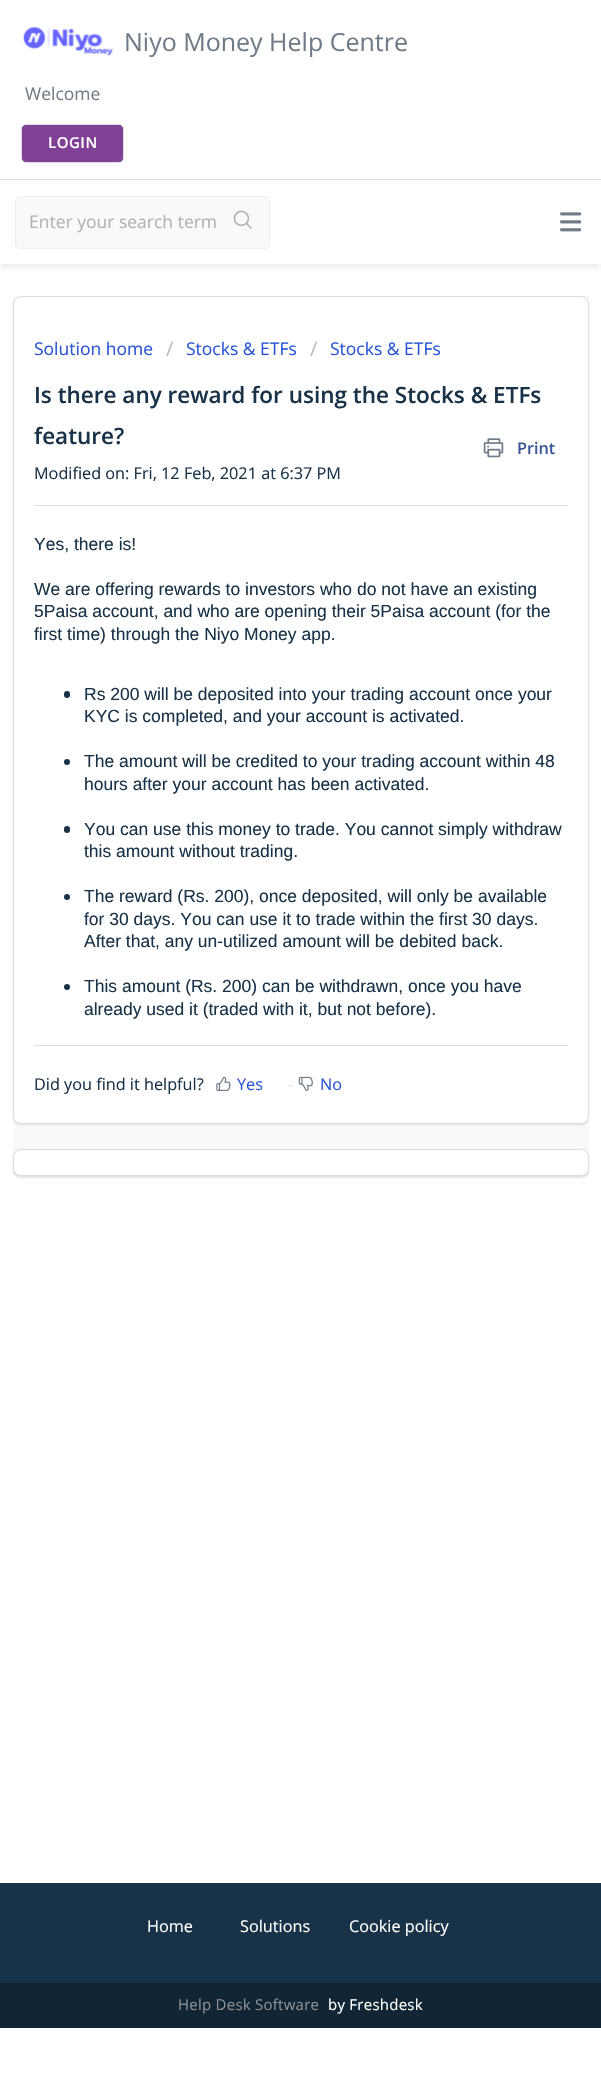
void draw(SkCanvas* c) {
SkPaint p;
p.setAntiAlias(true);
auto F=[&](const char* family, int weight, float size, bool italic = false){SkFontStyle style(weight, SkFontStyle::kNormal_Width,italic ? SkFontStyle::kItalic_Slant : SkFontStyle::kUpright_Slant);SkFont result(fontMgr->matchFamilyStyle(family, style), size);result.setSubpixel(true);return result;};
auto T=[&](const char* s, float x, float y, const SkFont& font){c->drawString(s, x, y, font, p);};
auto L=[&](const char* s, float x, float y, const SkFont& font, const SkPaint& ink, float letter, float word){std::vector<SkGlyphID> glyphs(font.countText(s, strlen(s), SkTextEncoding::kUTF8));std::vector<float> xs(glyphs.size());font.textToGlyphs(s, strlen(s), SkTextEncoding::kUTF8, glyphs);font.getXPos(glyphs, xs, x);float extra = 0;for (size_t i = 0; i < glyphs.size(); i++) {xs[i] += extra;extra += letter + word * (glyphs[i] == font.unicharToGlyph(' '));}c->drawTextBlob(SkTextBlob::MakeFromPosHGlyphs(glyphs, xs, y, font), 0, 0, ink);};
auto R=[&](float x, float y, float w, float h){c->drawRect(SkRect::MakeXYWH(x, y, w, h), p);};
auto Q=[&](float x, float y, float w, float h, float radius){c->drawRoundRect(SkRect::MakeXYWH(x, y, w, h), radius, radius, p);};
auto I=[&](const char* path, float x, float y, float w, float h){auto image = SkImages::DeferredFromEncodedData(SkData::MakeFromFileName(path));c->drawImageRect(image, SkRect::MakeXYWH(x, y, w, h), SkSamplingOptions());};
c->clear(0xffffffff);
p.setColor(0xffdadfe3);
R(0,179,601,1);
I("1.png",23,26,90,30);
auto f1 = F("Open Sans",400,25);
p.setColor(0xff6f7c87);
T("Niyo Money Help Centre",124,51,f1);
auto f2 = F("Open Sans",400,17.5);
T("Welcome",25,100,f2);
p.setColor(0xff804096);
c->drawRoundRect(SkRect::MakeXYWH(21.5,124.5,102,38),4.5,4.5,p);
p.setStroke(true);
p.setStrokeWidth(1);
p.setColor(0xffdadfe3);
c->drawRoundRect(SkRect::MakeXYWH(21.5,124.5,102,38),4.5,4.5,p);
auto f3 = F("Open Sans",600,15);
p.setStroke(false);
p.setColor(0xffffffff);
L("LOGIN",48,148,f3,p,.5,0);
p.setColor(0xffeeeeee);
p.setMaskFilter(SkMaskFilter::MakeBlur(kNormal_SkBlurStyle, 2.5));
c->drawRect(SkRect::MakeXYWH(0,184,601,84),p);
p.setMaskFilter(nullptr);
p.setColor(0xffffffff);
R(0,181,601,83);
I("2.png",560,212,22,20);
p.setColor(0xfff8f9fa);
c->drawRoundRect(SkRect::MakeXYWH(15.5,196.5,254,52),4.5,4.5,p);
p.setStroke(true);
p.setColor(0xffebeef0);
c->drawRoundRect(SkRect::MakeXYWH(15.5,196.5,254,52),4.5,4.5,p);
p.setStroke(false);
p.setColor(0xffb2b2b2);
T("Enter your search term",29,228,f2);
p.setColor(0xfff8f9fa);
Q(219,198,50,50,2.5);
I("3.png",233,210,19,19);
R(13,296,576,880);
p.setColor(0x263f3f44);
p.setMaskFilter(SkMaskFilter::MakeBlur(kNormal_SkBlurStyle, 1));
c->drawRoundRect(SkRect::MakeXYWH(13,298,576,827),8,8,p);
p.setMaskFilter(nullptr);
p.setColor(0xffffffff);
c->drawRoundRect(SkRect::MakeXYWH(13.5,296.5,575,827),7.5,7.5,p);
p.setStroke(true);
p.setColor(0xffdadfe3);
c->drawRoundRect(SkRect::MakeXYWH(13.5,296.5,575,827),7.5,7.5,p);
p.setStroke(false);
p.setColor(0xff2753d7);
T("Solution home",34,355,f2);
auto f4 = F("Open Sans",400,20);
p.setColor(0xffbbbbbb);
T("/",166,356,f4);
p.setColor(0xff2753d7);
T("Stocks & ETFs",186,355,f2);
p.setColor(0xffbbbbbb);
T("/",310,356,f4);
p.setColor(0xff2753d7);
T("Stocks & ETFs",330,355,f2);
auto f5 = F("Open Sans",600,22.5);
p.setColor(0xff183247);
T("Is there any reward for using the Stocks & ETFs",34,403,f5);
T("feature?",34,444,f5);
I("4.png",483,438,21,20);
auto f6 = F("Open Sans",600,16.25);
p.setColor(0xff3b5998);
T("Print",517,454,f6);
auto f7 = F("Open Sans",400,16.25);
p.setColor(0xff183247);
T("Modified on: Fri, 12 Feb, 2021 at 6:37 PM",34,479,f7);
p.setColor(0xffdcdcdc);
R(34,505,534,1);
auto f8 = F("Liberation Sans",400,17.5);
p.setColor(0xff183247);
T("Yes, there is!",34,550,f8);
T("We are offering rewards to investors who do not have an existing",34,595,f8);
T("5Paisa account, and who are opening their 5Paisa account (for the",34,617,f8);
T("first time) through the Niyo Money app.",34,640,f8);
Q(64,691,6,7,3);
T("Rs 200 will be deposited into your trading account once your",84,700,f8);
T("KYC is completed, and your account is activated.",84,722,f8);
c->drawCircle(67,762,3,p);
T("The amount will be credited to your trading account within 48",84,767,f8);
T("hours after your account has been activated.",84,790,f8);
Q(64,826,6,7,3);
T("You can use this money to trade. You cannot simply withdraw",84,835,f8);
T("this amount without trading.",84,857,f8);
c->drawCircle(67,897,3,p);
T("The reward (Rs. 200), once deposited, will only be available",84,902,f8);
T("for 30 days. You can use it to trade within the first 30 days.",84,925,f8);
T("After that, any un-utilized amount will be debited back.",84,947,f8);
c->drawCircle(67,987,3,p);
T("This amount (Rs. 200) can be withdrawn, once you have",84,992,f8);
T("already used it (traded with it, but not before).",84,1015,f8);
p.setColor(0xffdcdcdc);
R(34,1045,534,1);
p.setColor(0xff183247);
T("Did you find it helpful?",34,1090,f7);
I("5.png",216,1076,15,15);
p.setColor(0xff2753d7);
T("Yes",237,1090,f7);
p.setColor(0xffe5e5e5);
T("-",288,1090,f7);
I("6.png",298,1076,15,15);
p.setColor(0xff2753d7);
T("No",320,1090,f7);
p.setColor(0x263f3f44);
p.setMaskFilter(SkMaskFilter::MakeBlur(kNormal_SkBlurStyle, 1));
c->drawRoundRect(SkRect::MakeXYWH(13,1150,576,28),8,8,p);
p.setMaskFilter(nullptr);
p.setColor(0xffffffff);
c->drawRoundRect(SkRect::MakeXYWH(13.5,1149.5,575,26),7.5,7.5,p);
p.setStroke(true);
p.setColor(0xffdadfe3);
c->drawRoundRect(SkRect::MakeXYWH(13.5,1149.5,575,26),7.5,7.5,p);
p.setStroke(false);
p.setColor(0xff183247);
R(0,1883,601,100);
p.setColor(0xffffffff);
T("Home",147,1932,f7);
T("Solutions",240,1932,f7);
T("Cookie policy",349,1932,f7);
p.setColor(0xff122534);
R(0,1983,601,45);
auto f9 = F("Open Sans",400,15);
p.setColor(0xff89929a);
L("Help Desk Software",178,2010,f9,p,.25,0);
p.setColor(0xffffffff);
L("by Freshdesk",328,2010,f9,p,.25,0);
}
